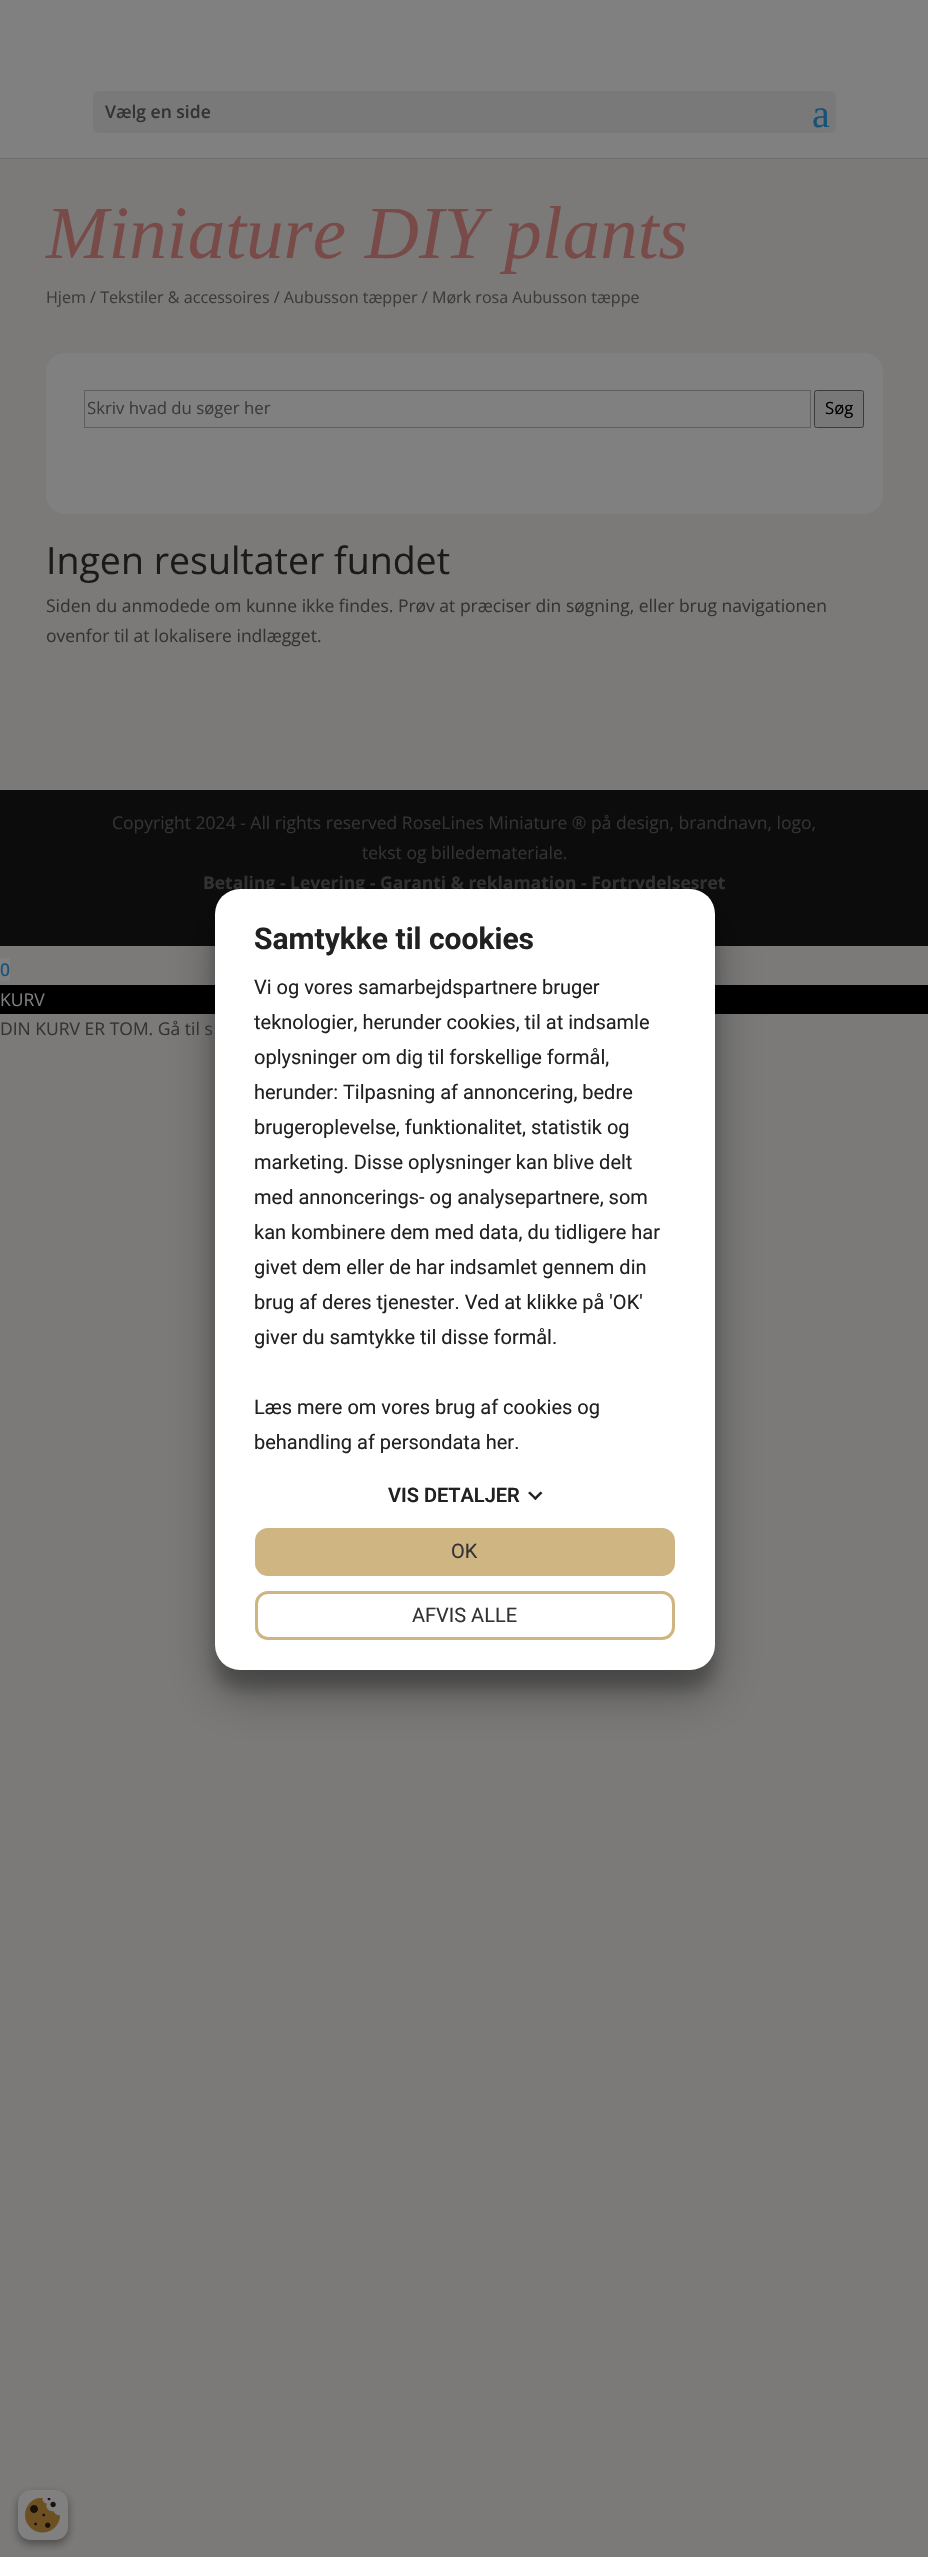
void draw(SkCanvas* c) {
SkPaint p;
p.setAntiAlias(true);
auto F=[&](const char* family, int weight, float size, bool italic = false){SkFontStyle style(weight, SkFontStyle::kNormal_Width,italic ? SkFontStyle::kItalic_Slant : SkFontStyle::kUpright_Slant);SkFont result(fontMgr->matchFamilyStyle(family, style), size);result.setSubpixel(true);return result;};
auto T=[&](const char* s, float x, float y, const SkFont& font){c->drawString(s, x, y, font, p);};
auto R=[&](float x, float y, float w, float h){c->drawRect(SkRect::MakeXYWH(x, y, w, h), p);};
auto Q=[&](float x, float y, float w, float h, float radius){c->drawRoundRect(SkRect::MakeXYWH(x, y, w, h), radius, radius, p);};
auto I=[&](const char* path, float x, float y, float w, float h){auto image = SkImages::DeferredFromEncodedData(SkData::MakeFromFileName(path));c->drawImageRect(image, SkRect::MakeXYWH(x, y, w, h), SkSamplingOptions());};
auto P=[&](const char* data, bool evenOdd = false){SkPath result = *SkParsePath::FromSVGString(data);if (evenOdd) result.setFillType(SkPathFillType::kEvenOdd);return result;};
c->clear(0xff7b7a79);
p.setColor(0xff6f6e6d);
c->drawPath(P("M0 158v1h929v-158v157z"),p);
p.setColor(0xff808080);
R(0,0,928,158);
p.setColor(0xff797979);
Q(93,91,743,42,6);
auto f1 = F("Open Sans",600,17.5);
p.setColor(0xff333333);
T("Vælg en side",105,118,f1);
auto f2 = F("Liberation Serif",400,40);
p.setColor(0xff175279);
T("a",812,127,f2);
auto f3 = F("Liberation Serif",400,75,true);
p.setColor(0xff784b48);
T("Miniature DIY plants",46,258,f3);
auto f4 = F("Open Sans",400,16.1);
p.setColor(0xff3b3b3b);
T("Hjem / Tekstiler & accessoires / Aubusson tæpper / Mørk rosa Aubusson tæppe",46,303,f4);
p.setColor(0xff808080);
Q(46,353,837,161,19);
p.setStroke(true);
p.setStrokeWidth(1);
p.setColor(0xff5e5e5e);
c->drawRect(SkRect::MakeXYWH(84.5,390.5,726,37),p);
auto f5 = F("Open Sans",400,16.75);
p.setStroke(false);
p.setColor(0xff3b3b3b);
T("Skriv hvad du søger her",87,414,f5);
p.setColor(0xff787878);
c->drawRoundRect(SkRect::MakeXYWH(814.5,390.5,49,37),2,2,p);
p.setStroke(true);
p.setColor(0xff3b3b3b);
c->drawRoundRect(SkRect::MakeXYWH(814.5,390.5,49,37),2,2,p);
p.setStroke(false);
p.setColor(0xff000000);
T("Søg",825,414,f5);
auto f6 = F("Open Sans",400,37.5);
p.setColor(0xff1a1a1a);
T("Ingen resultater fundet",46,574,f6);
auto f7 = F("Open Sans",400,17.5);
p.setColor(0xff333333);
T("Siden du anmodede om kunne ikke findes. Prøv at præciser din søgning, eller brug navigationen",46,612,f7);
T("ovenfor til at lokalisere indlægget.",46,642,f7);
p.setColor(0xff0c0c0c);
R(0,790,928,156);
p.setColor(0xff333333);
T("Copyright 2024 - All rights reserved RoseLines Miniature ® på design, brandnavn, logo,",112,829,f7);
T("tekst og billedemateriale.",362,859,f7);
auto f8 = F("Open Sans",700,17.5);
T("Betaling - Levering - Garanti & reklamation - Fortrydelsesret",203,889,f8);
p.setColor(0xff808080);
R(0,958,10,23);
auto f9 = F("Open Sans",500,17.5);
p.setColor(0xff175279);
T("0",0,976,f9);
p.setColor(0xff000000);
R(0,985,928,29);
p.setColor(0x38000000);
p.setMaskFilter(SkMaskFilter::MakeBlur(kNormal_SkBlurStyle, 7.5));
c->drawRoundRect(SkRect::MakeXYWH(215,908,500,781),25,25,p);
p.setMaskFilter(nullptr);
p.setColor(0x4d000000);
p.setMaskFilter(SkMaskFilter::MakeBlur(kNormal_SkBlurStyle, 24));
c->drawRoundRect(SkRect::MakeXYWH(215,913,500,781),25,25,p);
p.setMaskFilter(nullptr);
p.setColor(0xffffffff);
Q(215,889,500,781,25);
auto f10 = F("Roboto",700,30);
p.setColor(0xff212121);
T("Samtykke til cookies",254,949,f10);
auto f11 = F("Roboto",400,20);
T("Vi og vores samarbejdspartnere bruger",254,994,f11);
T("teknologier, herunder cookies, til at indsamle",254,1029,f11);
T("oplysninger om dig til forskellige formål,",254,1064,f11);
T("herunder: Tilpasning af annoncering, bedre",254,1099,f11);
T("brugeroplevelse, funktionalitet, statistik og",254,1134,f11);
T("marketing. Disse oplysninger kan blive delt",254,1169,f11);
T("med annoncerings- og analysepartnere, som",254,1204,f11);
T("kan kombinere dem med data, du tidligere har",254,1239,f11);
T("givet dem eller de har indsamlet gennem din",254,1274,f11);
T("brug af deres tjenester. Ved at klikke på 'OK'",254,1309,f11);
T("giver du samtykke til disse formål.",254,1344,f11);
T("Læs mere om vores brug af cookies og",254,1414,f11);
T("behandling af persondata her.",254,1449,f11);
auto f12 = F("Roboto",600,20);
T("VIS DETALJER",388,1502,f12);
c->drawPath(P("M540.5 1491.5l2 1.5l-7 7l-2-1.5z"),p);
c->drawPath(P("M530 1491.5l7 7l-1.5 1.5l-7.5-7z"),p);
p.setColor(0xffceb582);
c->drawRoundRect(SkRect::MakeXYWH(256.5,1529.5,417,45),11.5,11.5,p);
p.setStroke(true);
p.setStrokeWidth(3);
c->drawRoundRect(SkRect::MakeXYWH(256.5,1529.5,417,45),11.5,11.5,p);
p.setStroke(false);
p.setColor(0xff333333);
T("OK",451,1558,f11);
p.setStroke(true);
p.setColor(0xffceb582);
c->drawRoundRect(SkRect::MakeXYWH(256.5,1592.5,417,46),11.5,11.5,p);
p.setStroke(false);
p.setColor(0xff333333);
T("AFVIS ALLE",412,1622,f11);
p.setColor(0xff808080);
T("KURV",0,1006,f7);
p.setColor(0xff333333);
T("DIN KURV ER TOM. Gå til s",0,1035,f7);
p.setColor(0x3b000000);
p.setMaskFilter(SkMaskFilter::MakeBlur(kNormal_SkBlurStyle, 4));
c->drawRoundRect(SkRect::MakeXYWH(18,2494,50,50),13,13,p);
p.setMaskFilter(nullptr);
p.setColor(0x29000000);
p.setMaskFilter(SkMaskFilter::MakeBlur(kNormal_SkBlurStyle, 4));
c->drawRoundRect(SkRect::MakeXYWH(18,2494,50,50),13,13,p);
p.setMaskFilter(nullptr);
p.setColor(0xff808080);
Q(18,2490,50,50,13);
I("1.png",25,2498,35,35);
}
